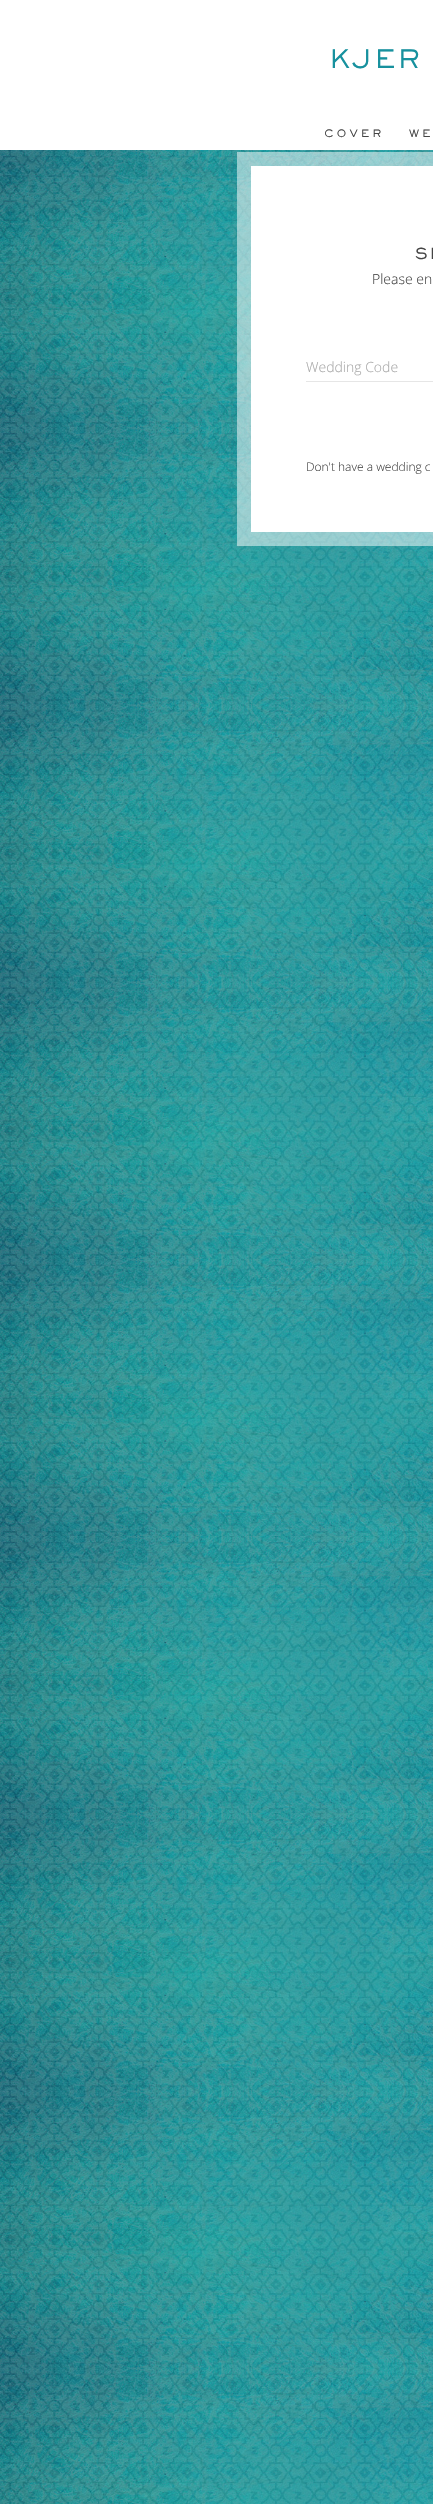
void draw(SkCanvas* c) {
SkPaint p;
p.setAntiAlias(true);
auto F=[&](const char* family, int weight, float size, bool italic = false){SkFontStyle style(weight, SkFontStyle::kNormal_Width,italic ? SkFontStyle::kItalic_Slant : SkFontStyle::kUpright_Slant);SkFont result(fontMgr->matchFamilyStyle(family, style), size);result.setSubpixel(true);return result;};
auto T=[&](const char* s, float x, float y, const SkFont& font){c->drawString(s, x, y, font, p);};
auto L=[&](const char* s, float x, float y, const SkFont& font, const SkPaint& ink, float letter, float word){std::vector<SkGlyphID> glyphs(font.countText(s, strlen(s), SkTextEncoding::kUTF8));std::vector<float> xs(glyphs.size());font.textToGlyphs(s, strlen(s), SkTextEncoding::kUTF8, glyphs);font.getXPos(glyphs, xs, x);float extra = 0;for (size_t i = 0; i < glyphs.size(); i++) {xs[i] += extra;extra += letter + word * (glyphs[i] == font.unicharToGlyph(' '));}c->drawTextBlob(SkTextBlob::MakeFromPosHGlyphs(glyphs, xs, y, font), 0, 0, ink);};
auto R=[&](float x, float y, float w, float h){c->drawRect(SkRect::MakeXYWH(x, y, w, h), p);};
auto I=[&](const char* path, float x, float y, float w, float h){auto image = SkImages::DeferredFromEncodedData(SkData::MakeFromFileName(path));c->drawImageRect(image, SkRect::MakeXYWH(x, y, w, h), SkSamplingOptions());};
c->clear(0xffffffff);
auto f1 = F("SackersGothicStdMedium",400,25);
p.setColor(0xff17919e);
L("KJER",329,68,f1,p,2,0);
auto f2 = F("SackersGothicStdMedium",400,10);
p.setColor(0xff454545);
L("COVER",324,137,f2,p,3,0);
L("WE",409,137,f2,p,3,0);
I("1.png",0,150,433,2354);
p.setColor(0xffffffff);
R(251,166,182,366);
p.setStroke(true);
p.setStrokeWidth(14);
p.setColor(0x80ffffff);
c->drawRect(SkRect::MakeXYWH(244,159,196,380),p);
auto f3 = F("SackersGothicStdMedium",400,15);
p.setStroke(false);
p.setColor(0xff454545);
L("SI",415,259,f3,p,2,0);
auto f4 = F("Open Sans",300,14);
T("Please en",372,284,f4);
p.setColor(0xffaaaaaa);
T("Wedding Code",306,372,f4);
p.setColor(0xffe6e6e6);
R(306,381,127,1);
auto f5 = F("Open Sans",300,12);
p.setColor(0xff454545);
T("Don't have a wedding c",306,471,f5);
}
